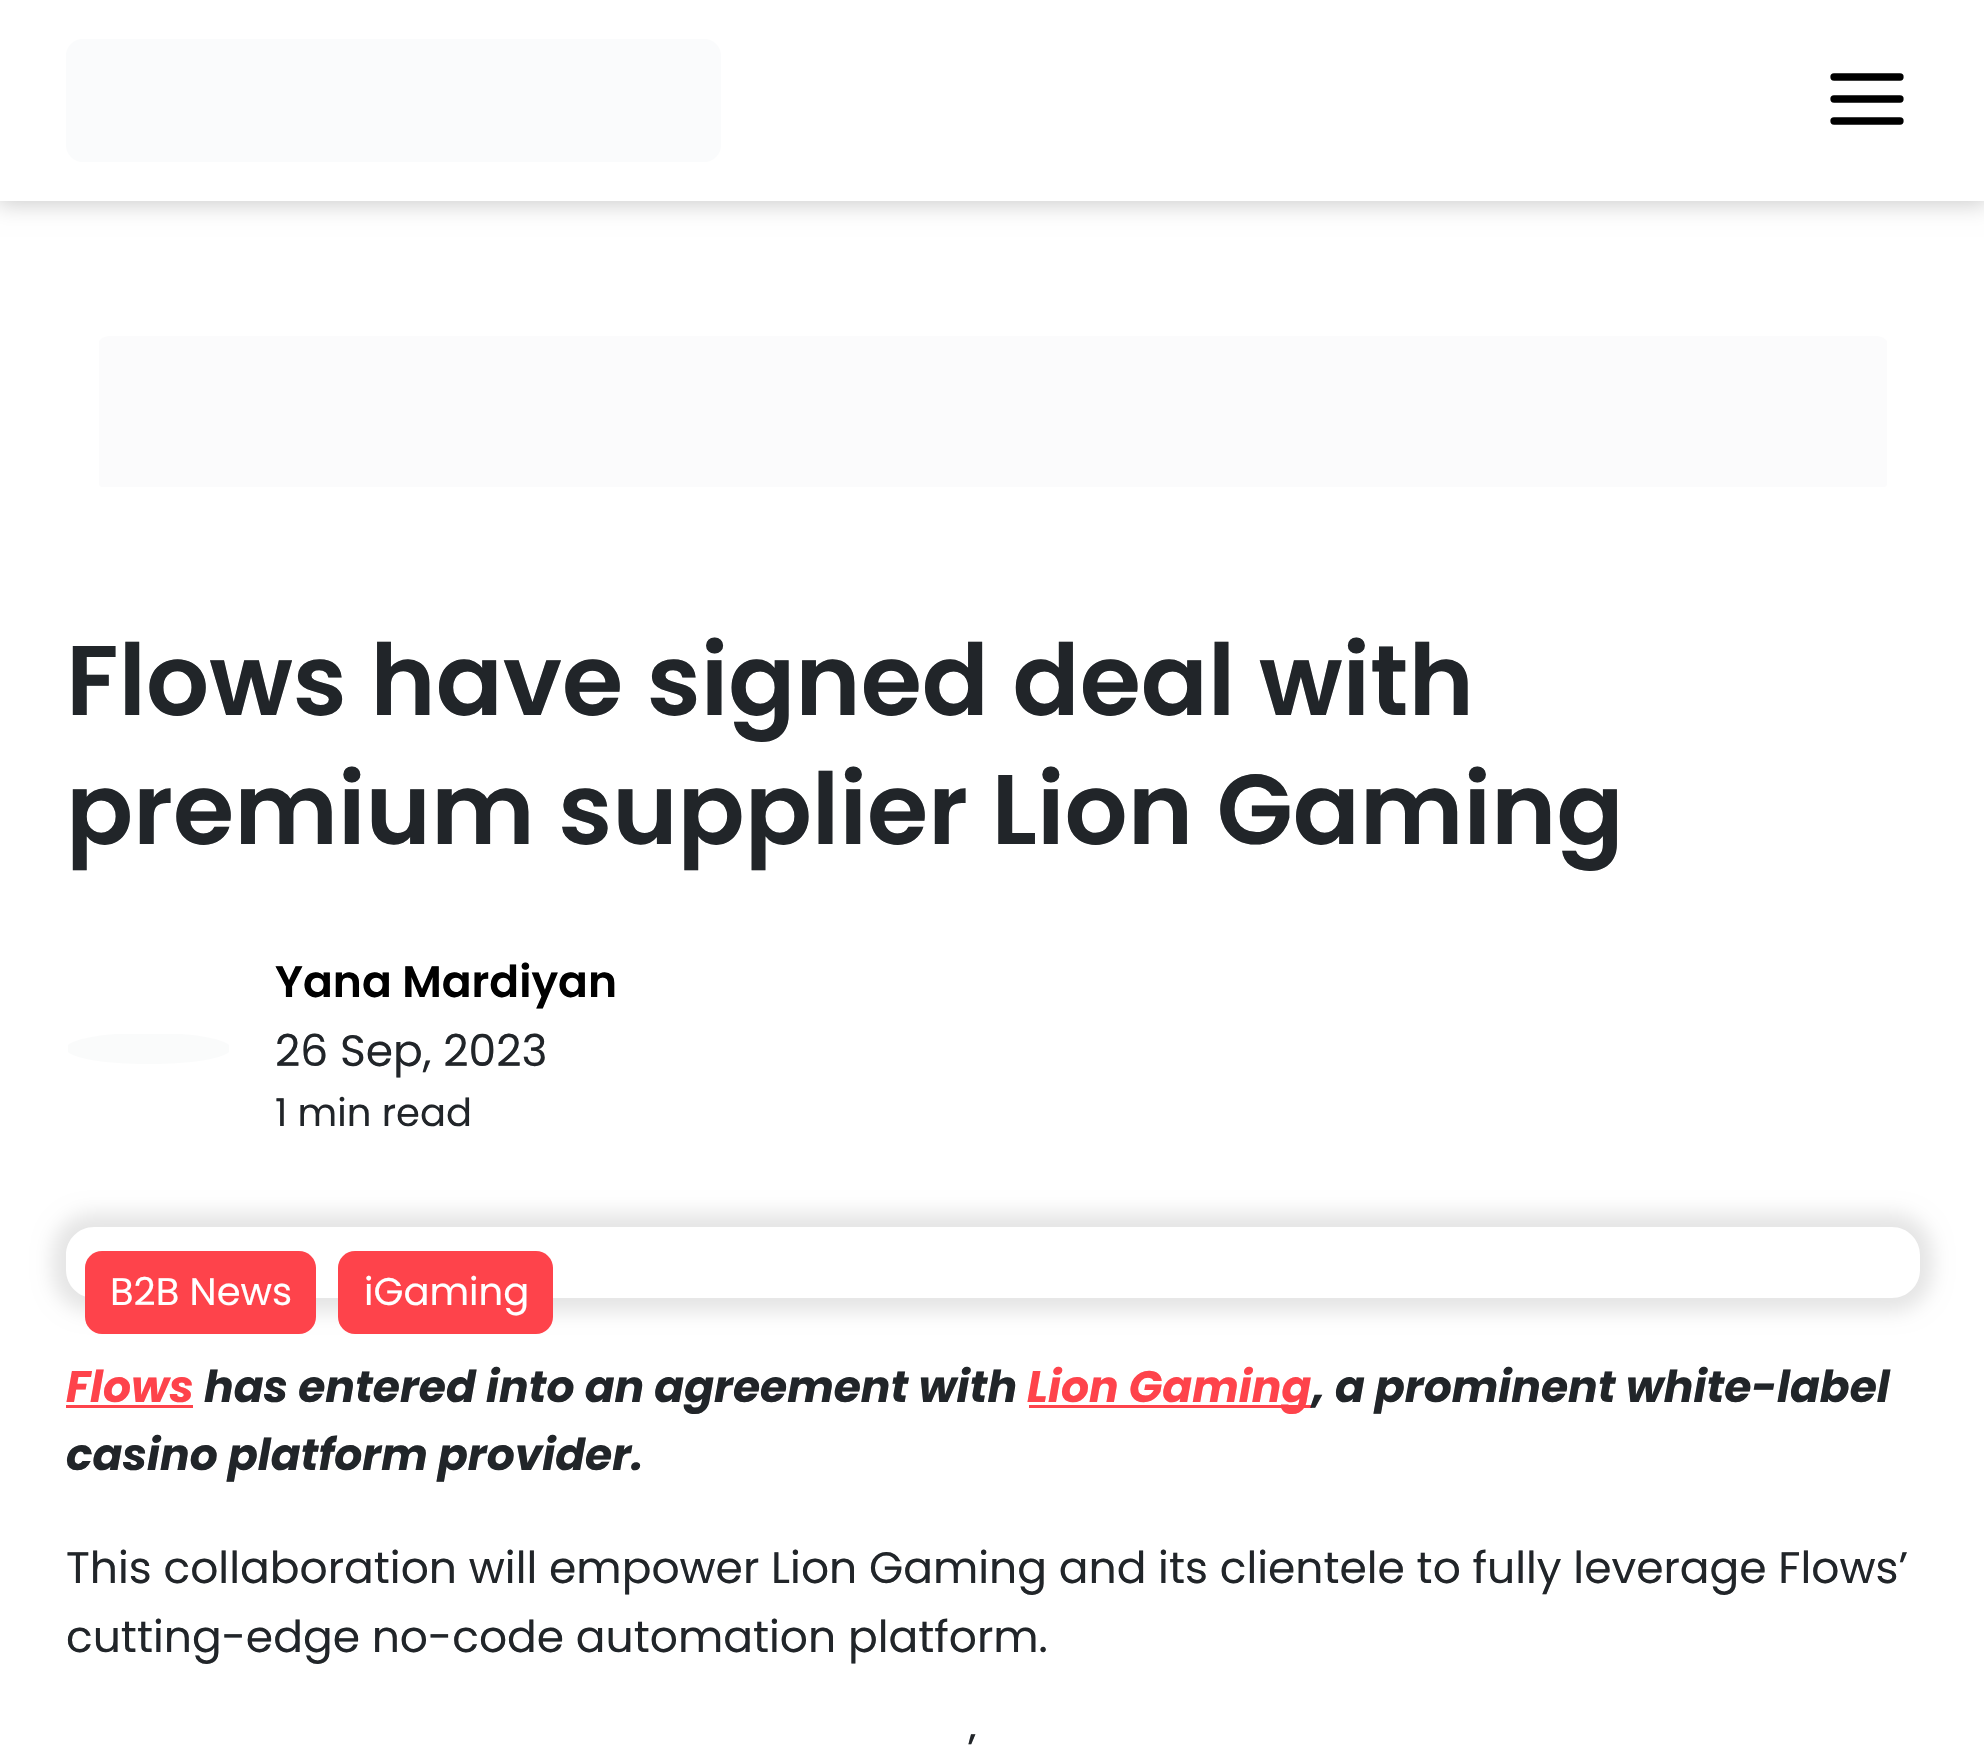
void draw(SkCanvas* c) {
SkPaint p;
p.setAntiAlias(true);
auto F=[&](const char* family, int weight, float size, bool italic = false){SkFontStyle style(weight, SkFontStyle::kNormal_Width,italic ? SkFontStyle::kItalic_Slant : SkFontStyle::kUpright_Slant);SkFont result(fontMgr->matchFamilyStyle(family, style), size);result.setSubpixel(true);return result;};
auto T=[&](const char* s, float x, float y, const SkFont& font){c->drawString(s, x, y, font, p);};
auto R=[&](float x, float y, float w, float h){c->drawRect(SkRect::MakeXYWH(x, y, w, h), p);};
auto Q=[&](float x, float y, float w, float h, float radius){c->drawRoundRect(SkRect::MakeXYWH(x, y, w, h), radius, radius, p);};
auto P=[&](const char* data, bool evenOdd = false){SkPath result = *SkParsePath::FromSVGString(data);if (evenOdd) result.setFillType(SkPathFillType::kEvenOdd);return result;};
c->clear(0xffffffff);
p.setColor(0x33000000);
p.setMaskFilter(SkMaskFilter::MakeBlur(kNormal_SkBlurStyle, 11));
c->drawRect(SkRect::MakeXYWH(-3,-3,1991,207),p);
p.setMaskFilter(nullptr);
p.setColor(0xffffffff);
R(0,0,1984,201);
p.setColor(0xfffafbfc);
Q(66,39,655,123,17);
p.setStroke(true);
p.setStrokeWidth(7.3);
p.setStrokeCap(SkPaint::kRound_Cap);
p.setStrokeJoin(SkPaint::kRound_Join);
p.setColor(0xff000000);
c->drawPath(P("M1834 77h66"),p);
c->drawPath(P("M1834 99h66"),p);
c->drawPath(P("M1834 121h66"),p);
c->save();
c->clipPath(P("M111 336h1764c9.5 0 17 7.5 17 17v120c0 9.5-7.5 17-17 17h-1764c-9.5 0-17-7.5-17-17v-120c0-9.5 7.5-17 17-17z"),true);
p.setStroke(false);
p.setColor(0xfffbfbfc);
R(99,336,1788,151);
c->restore();
auto f1 = F("Poppins",600,99);
p.setColor(0xff212529);
T("Flows have signed deal with",66,715,f1);
T("premium supplier Lion Gaming",66,844,f1);
p.setColor(0xfffafbfb);
c->drawPath(P("M68 1045c6-5 24-9 48-11h65c24 2 42 6 48 11v7c-19 16-142 16-161 0z"),p);
auto f2 = F("Poppins",600,44);
p.setColor(0xff000000);
T("Yana Mardiyan",275,997,f2);
auto f3 = F("Poppins",400,44);
p.setColor(0xff212529);
T("26 Sep, 2023",275,1066,f3);
auto f4 = F("Poppins",400,38.5);
T("1 min read",275,1126,f4);
c->save();
c->clipPath(P("M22 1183h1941v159h-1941zm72 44h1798c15.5 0 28 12.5 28 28v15c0 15.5-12.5 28-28 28h-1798c-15.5 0-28-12.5-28-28v-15c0-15.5 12.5-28 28-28z",true),true);
p.setColor(0x1a000000);
p.setMaskFilter(SkMaskFilter::MakeBlur(kNormal_SkBlurStyle, 9.5));
c->drawRoundRect(SkRect::MakeXYWH(52,1213,1881,99),41,41,p);
p.setMaskFilter(nullptr);
c->restore();
p.setColor(0xfffe434b);
Q(85,1251,231,83,17);
p.setColor(0xffffffff);
T("B2B News",110,1305,f4);
p.setColor(0xfffe434b);
Q(338,1251,215,83,17);
p.setColor(0xffffffff);
T("iGaming",364,1305,f4);
auto f5 = F("Poppins",700,44,true);
p.setColor(0xfffe434b);
T("Flows",66,1402,f5);
R(66,1405,127,3);
p.setColor(0xff212529);
T("has entered into an agreement with",204,1402,f5);
p.setColor(0xfffe434b);
R(1029,1405,283,3);
T("Lion Gaming",1027,1402,f5);
p.setColor(0xff212529);
T(", a prominent white-label",1312,1402,f5);
T("casino platform provider.",66,1470,f5);
T("This collaboration will empower Lion Gaming and its clientele to fully leverage Flows’",66,1583,f3);
T("cutting-edge no-code automation platform.",66,1652,f3);
T("’",967,1765,f3);
}
